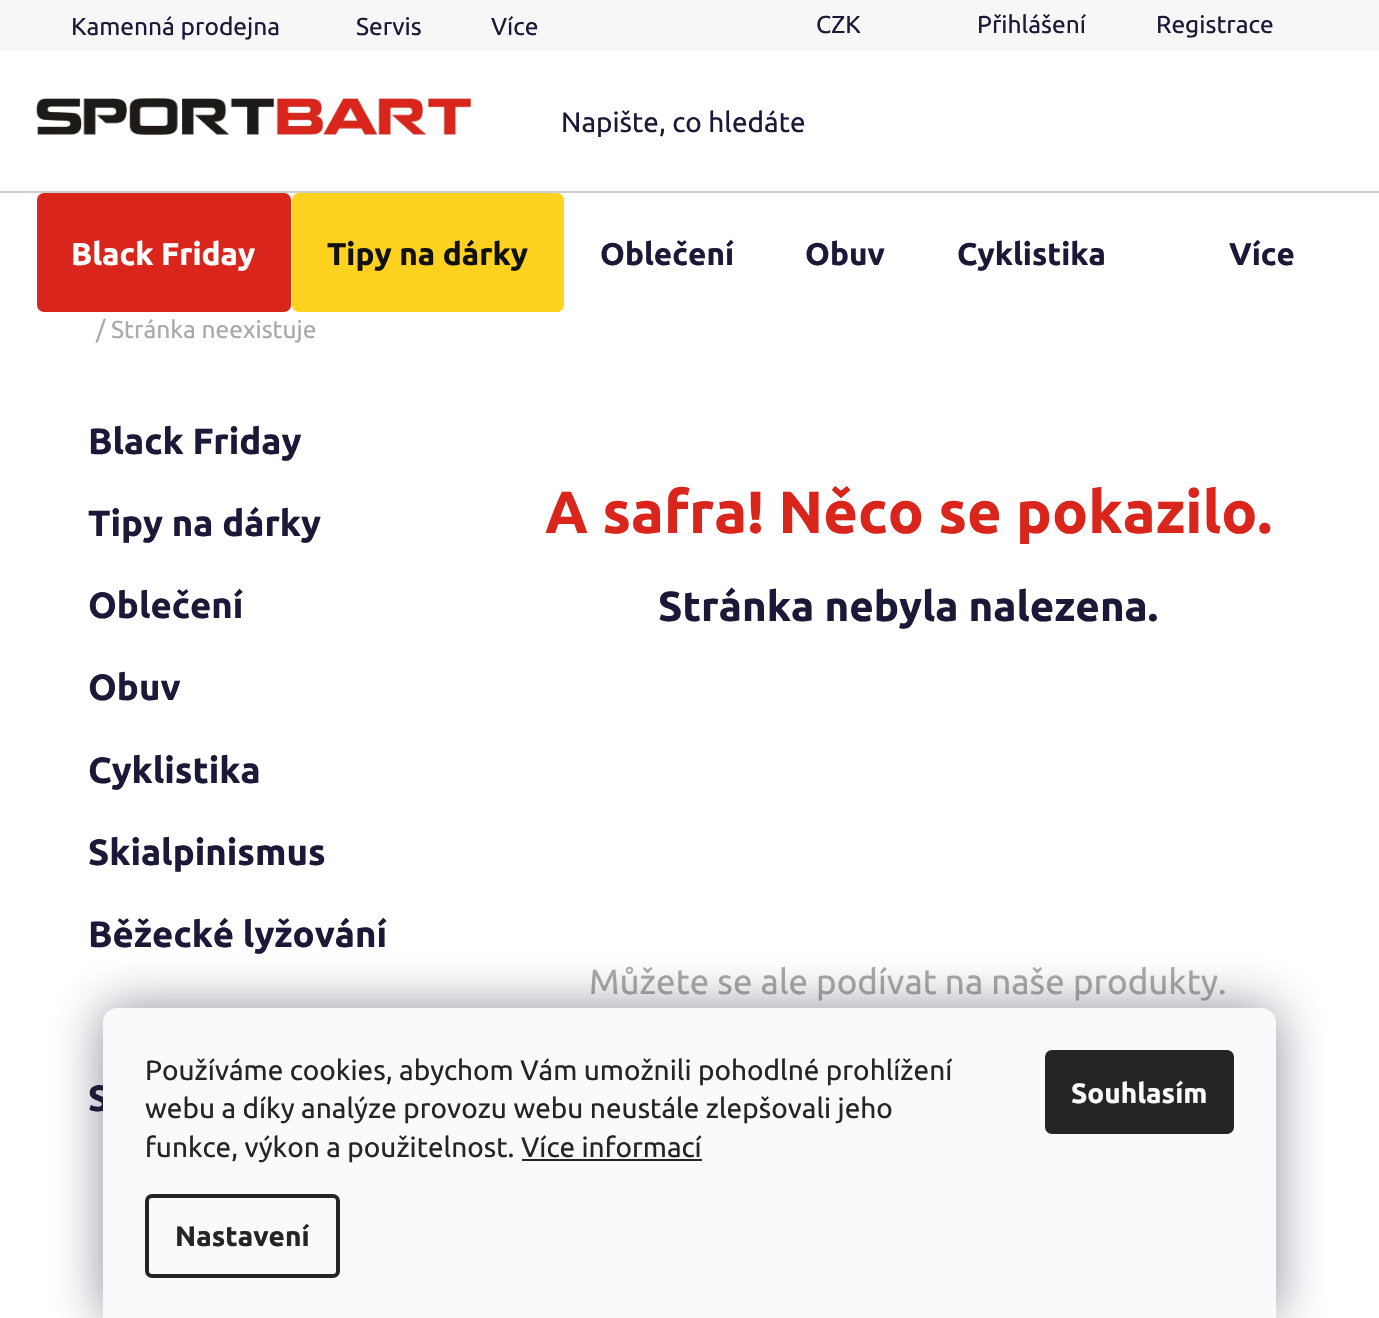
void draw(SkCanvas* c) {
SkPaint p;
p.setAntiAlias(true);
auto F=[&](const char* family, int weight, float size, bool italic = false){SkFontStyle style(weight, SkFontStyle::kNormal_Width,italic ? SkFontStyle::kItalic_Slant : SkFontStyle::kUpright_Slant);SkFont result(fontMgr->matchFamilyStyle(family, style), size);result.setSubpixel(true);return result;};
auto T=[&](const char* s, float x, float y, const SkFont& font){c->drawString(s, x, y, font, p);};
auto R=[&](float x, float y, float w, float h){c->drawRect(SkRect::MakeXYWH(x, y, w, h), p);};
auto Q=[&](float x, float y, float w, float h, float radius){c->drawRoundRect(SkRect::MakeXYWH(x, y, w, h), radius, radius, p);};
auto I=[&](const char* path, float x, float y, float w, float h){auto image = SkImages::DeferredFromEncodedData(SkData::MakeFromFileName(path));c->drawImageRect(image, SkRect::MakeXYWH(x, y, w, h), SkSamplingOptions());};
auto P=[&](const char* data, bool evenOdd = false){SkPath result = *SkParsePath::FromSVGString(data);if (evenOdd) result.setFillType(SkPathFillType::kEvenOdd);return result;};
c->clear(0xffffffff);
p.setColor(0xfff7f7f7);
R(0,0,1379,51);
auto f1 = F("Ubuntu",400,24.5);
p.setColor(0xff1a1937);
T("Kamenná prodejna",71,35,f1);
T("Servis",356,35,f1);
T("Více",491,35,f1);
T("CZK",816,33,f1);
T("Přihlášení",977,33,f1);
T("Registrace",1156,33,f1);
I("1.png",36,98,435,37);
c->save();
c->clipRect(SkRect::MakeXYWH(562,105,338,32));
auto f2 = F("Ubuntu",400,28);
T("Napište, co hledáte",561,132,f2);
c->restore();
p.setColor(0xffcfcfcf);
R(0,191,1379,2);
p.setColor(0xffda251c);
Q(37,193,254,119,7);
auto f3 = F("Ubuntu",700,31.5);
p.setColor(0xffffffff);
T("Black Friday",71,265,f3);
p.setColor(0xffffd21f);
Q(292,193,272,119,7);
p.setColor(0xff111111);
T("Tipy na dárky",327,265,f3);
p.setColor(0xff1a1937);
T("Oblečení",600,265,f3);
T("Obuv",805,265,f3);
T("Cyklistika",957,265,f3);
T("Více",1229,265,f3);
p.setColor(0xffaaaaaa);
T("/ Stránka neexistuje",96,338,f1);
auto f4 = F("Ubuntu",700,36.5);
p.setColor(0xff1a1937);
T("Black Friday",88,454,f4);
T("Tipy na dárky",88,536,f4);
T("Oblečení",88,618,f4);
T("Obuv",88,700,f4);
T("Cyklistika",88,783,f4);
T("Skialpinismus",88,865,f4);
T("Běžecké lyžování",88,947,f4);
T("S",88,1111,f4);
auto f5 = F("Ubuntu",700,59.5);
p.setColor(0xffda251c);
T("A safra! Něco se pokazilo.",545,533,f5);
auto f6 = F("Ubuntu",700,42);
p.setColor(0xff1a1937);
T("Stránka nebyla nalezena.",658,621,f6);
auto f7 = F("Ubuntu",400,35);
p.setColor(0xffaaaaaa);
T("Můžete se ale podívat na naše produkty.",589,994,f7);
p.setColor(0x801b1939);
p.setMaskFilter(SkMaskFilter::MakeBlur(kNormal_SkBlurStyle, 26));
c->drawRoundRect(SkRect::MakeXYWH(103,1008,1173,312),14,14,p);
p.setMaskFilter(nullptr);
p.setColor(0xfff8fafb);
c->drawPath(P("M117 1008h1145c7.5 0 14 6.5 14 14v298h-1173v-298c0-7.5 6.5-14 14-14z"),p);
p.setColor(0xff252525);
T("Používáme cookies, abychom Vám umožnili pohodlné prohlížení",145,1080,f2);
T("webu a díky analýze provozu webu neustále zlepšovali jeho",145,1118,f2);
T("funkce, výkon a použitelnost. Více informací",145,1157,f2);
R(522,1159,180,2);
p.setStroke(true);
p.setStrokeWidth(4);
c->drawRoundRect(SkRect::MakeXYWH(147,1196,191,80),5,5,p);
auto f8 = F("Ubuntu",700,28);
p.setStroke(false);
T("Nastavení",175,1246,f8);
Q(1045,1050,189,84,7);
p.setColor(0xfff8fafb);
T("Souhlasím",1071,1103,f8);
}
